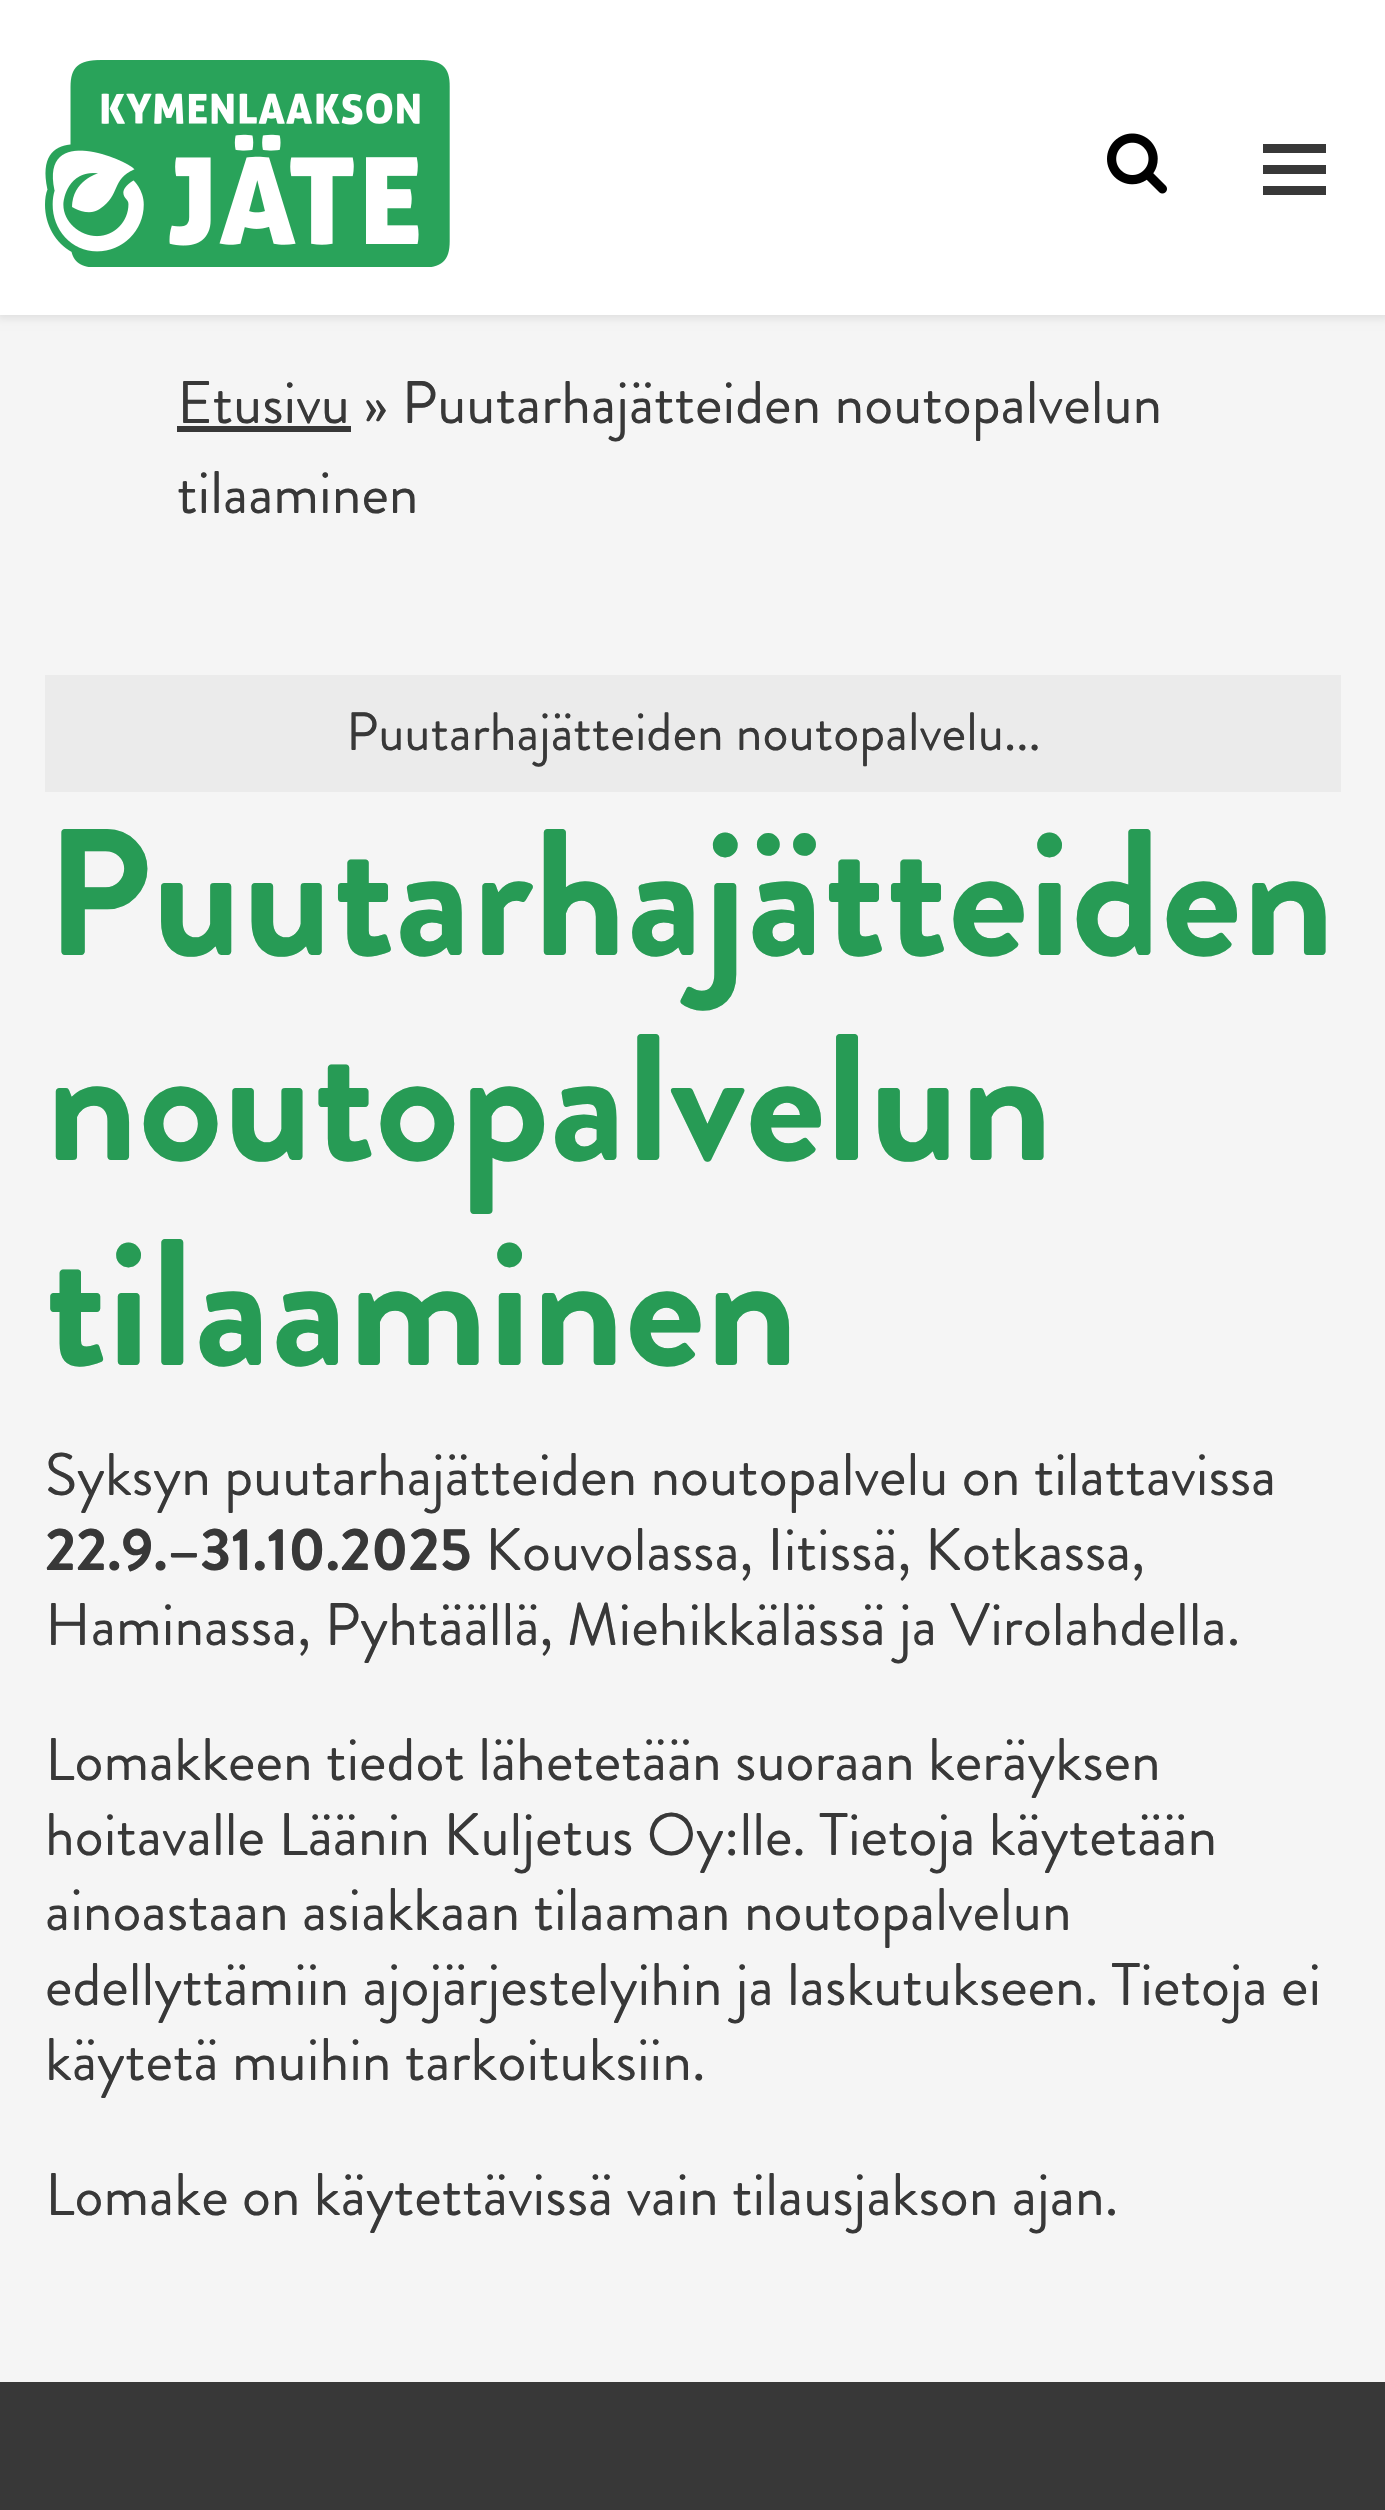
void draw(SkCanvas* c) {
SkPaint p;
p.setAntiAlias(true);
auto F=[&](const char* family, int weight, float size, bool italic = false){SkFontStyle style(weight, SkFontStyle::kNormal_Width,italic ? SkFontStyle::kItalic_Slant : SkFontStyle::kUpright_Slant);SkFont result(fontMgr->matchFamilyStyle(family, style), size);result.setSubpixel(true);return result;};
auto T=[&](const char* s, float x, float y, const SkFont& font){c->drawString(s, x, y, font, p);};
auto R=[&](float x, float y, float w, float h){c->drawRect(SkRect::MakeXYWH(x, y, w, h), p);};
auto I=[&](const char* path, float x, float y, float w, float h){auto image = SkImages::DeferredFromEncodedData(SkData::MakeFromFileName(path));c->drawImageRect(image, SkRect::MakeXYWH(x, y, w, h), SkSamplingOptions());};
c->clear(0xfff5f5f5);
p.setColor(0xffdddddd);
p.setMaskFilter(SkMaskFilter::MakeBlur(kNormal_SkBlurStyle, 4.5));
c->drawRect(SkRect::MakeXYWH(-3,-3,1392,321),p);
p.setMaskFilter(nullptr);
p.setColor(0xffffffff);
R(0,0,1385,315);
I("1.png",45,60,405,207);
I("2.png",1107,133,60,61);
p.setColor(0xff383838);
R(1263,165,63,9);
R(1263,144,63,9);
R(1263,186,63,9);
R(177,426,174,6);
auto f1 = F("Brandon Grotesque",400,60);
T("Etusivu » Puutarhajätteiden noutopalvelun",177,423,f1);
T("tilaaminen",177,513,f1);
p.setColor(0xffebebeb);
R(45,675,1296,117);
auto f2 = F("Brandon Grotesque",400,54);
p.setColor(0xff383838);
T("Puutarhajätteiden noutopalvelu...",346,750,f2);
auto f3 = F("Brandon Grotesque",700,180);
p.setColor(0xff279b55);
T("Puutarhajätteiden",45,955,f3);
T("noutopalvelun",45,1160,f3);
T("tilaaminen",45,1365,f3);
p.setColor(0xff383838);
T("Syksyn puutarhajätteiden noutopalvelu on tilattavissa",45,1495,f1);
auto f4 = F("Brandon Grotesque",700,60);
T("22.9.–31.10.2025",45,1570,f4);
T("Kouvolassa, Iitissä, Kotkassa,",485,1570,f1);
T("Haminassa, Pyhtäällä, Miehikkälässä ja Virolahdella.",45,1645,f1);
T("Lomakkeen tiedot lähetetään suoraan keräyksen",45,1780,f1);
T("hoitavalle Läänin Kuljetus Oy:lle. Tietoja käytetään",45,1855,f1);
T("ainoastaan asiakkaan tilaaman noutopalvelun",45,1930,f1);
T("edellyttämiin ajojärjestelyihin ja laskutukseen. Tietoja ei",45,2005,f1);
T("käytetä muihin tarkoituksiin.",45,2080,f1);
T("Lomake on käytettävissä vain tilausjakson ajan.",45,2215,f1);
R(0,2382,1385,128);
}
